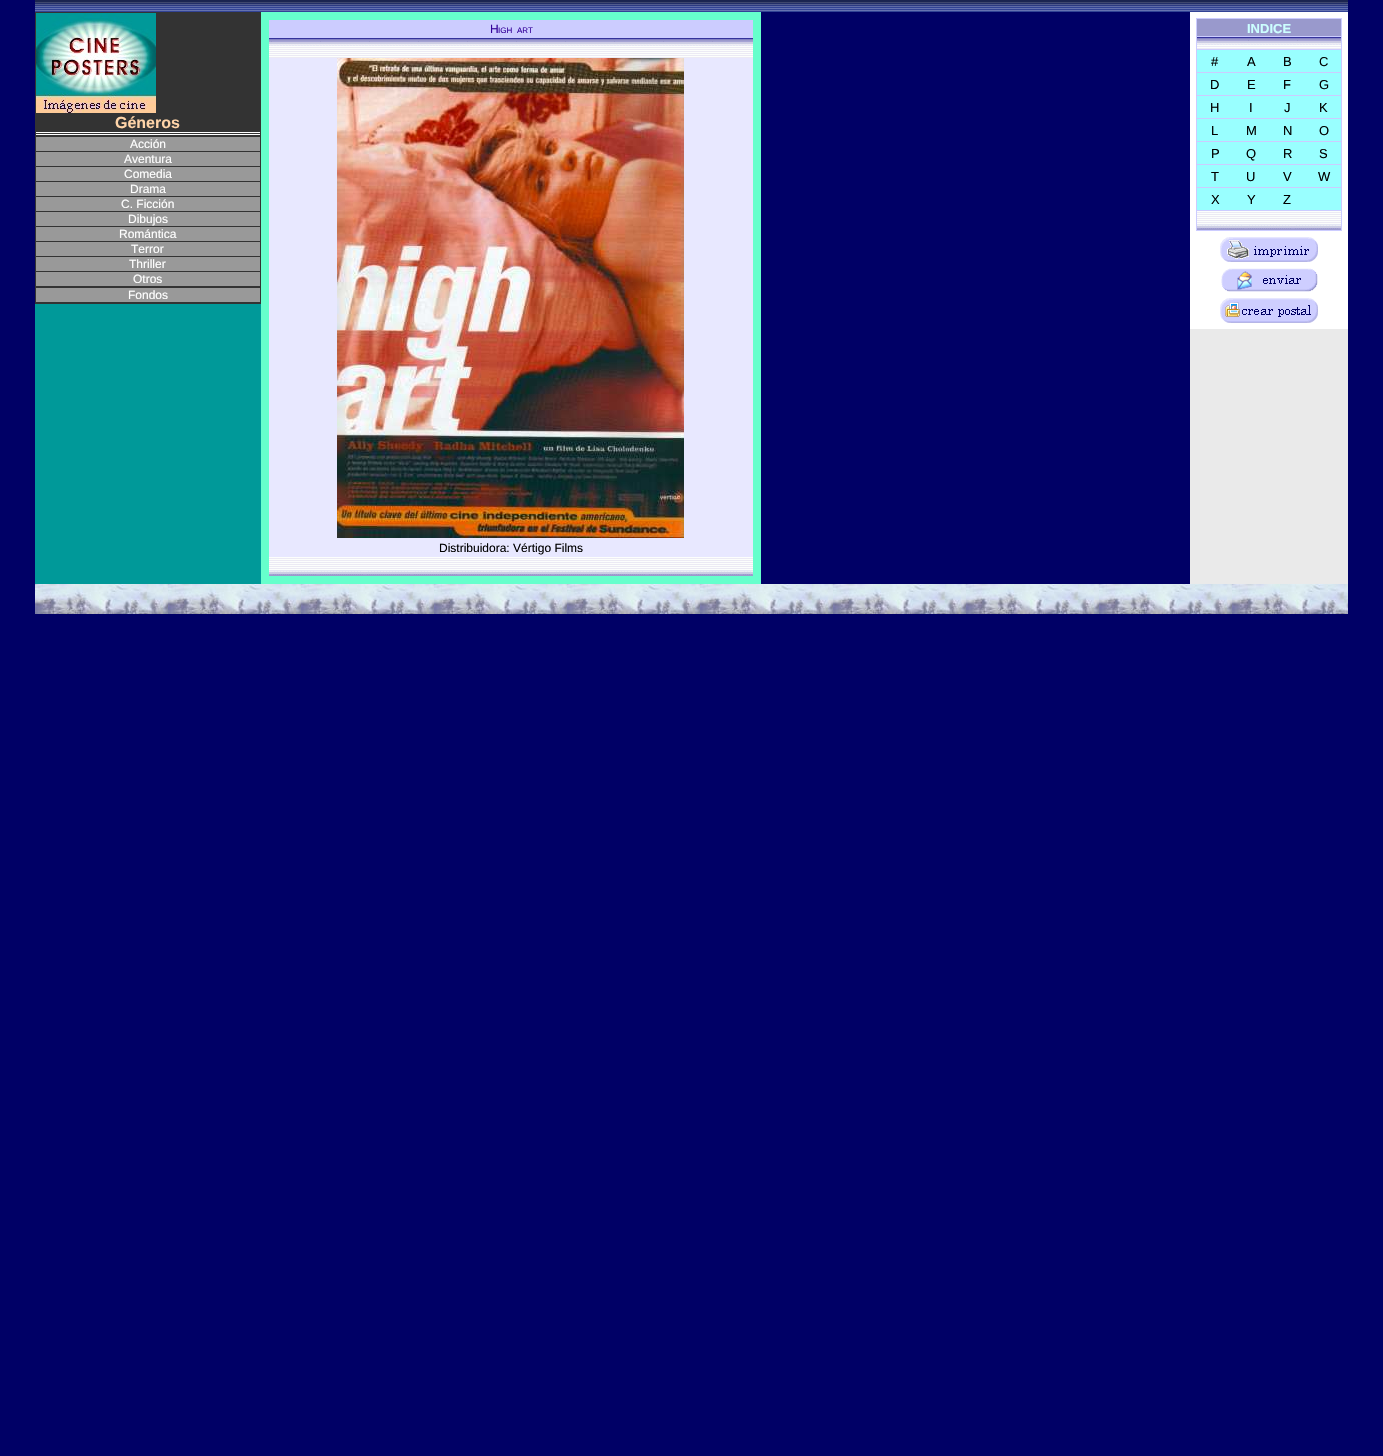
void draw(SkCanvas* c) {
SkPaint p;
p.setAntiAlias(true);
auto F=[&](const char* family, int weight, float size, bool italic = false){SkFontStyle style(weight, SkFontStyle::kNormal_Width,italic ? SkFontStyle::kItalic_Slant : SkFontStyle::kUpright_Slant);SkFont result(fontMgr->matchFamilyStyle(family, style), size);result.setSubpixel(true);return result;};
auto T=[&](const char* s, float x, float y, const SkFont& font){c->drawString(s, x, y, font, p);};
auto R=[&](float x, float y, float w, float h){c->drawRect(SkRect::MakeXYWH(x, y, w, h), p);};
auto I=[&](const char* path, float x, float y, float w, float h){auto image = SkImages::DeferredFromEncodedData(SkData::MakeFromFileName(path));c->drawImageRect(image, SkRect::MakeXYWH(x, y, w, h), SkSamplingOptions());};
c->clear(0xff000066);
I("1.png",35,0,1313,12);
p.setColor(0xff009999);
R(35,304,226,280);
p.setColor(0xff333333);
R(35,12,226,292);
I("2.png",36,13,120,100);
p.setColor(0xffffffff);
R(36,132,224,1);
R(36,134,224,1);
auto f1 = F("Liberation Sans",700,16);
p.setColor(0xffffd4a8);
T("Géneros",115,128,f1);
p.setColor(0xff999999);
R(36,137,224,14);
auto f2 = F("Liberation Sans",400,12);
p.setColor(0xffffffff);
T("Acción",130,148,f2);
p.setColor(0xff999999);
R(36,152,224,14);
p.setColor(0xffffffff);
T("Aventura",124,163,f2);
p.setColor(0xff999999);
R(36,167,224,14);
p.setColor(0xffffffff);
T("Comedia",124,178,f2);
p.setColor(0xff999999);
R(36,182,224,14);
p.setColor(0xffffffff);
T("Drama",130,193,f2);
p.setColor(0xff999999);
R(36,197,224,14);
p.setColor(0xffffffff);
T("C. Ficción",121,208,f2);
p.setColor(0xff999999);
R(36,212,224,14);
p.setColor(0xffffffff);
T("Dibujos",128,223,f2);
p.setColor(0xff999999);
R(36,227,224,14);
p.setColor(0xffffffff);
T("Romántica",119,238,f2);
p.setColor(0xff999999);
R(36,242,224,14);
p.setColor(0xffffffff);
T("Terror",131,253,f2);
p.setColor(0xff999999);
R(36,257,224,14);
p.setColor(0xffffffff);
T("Thriller",129,268,f2);
p.setColor(0xff999999);
R(36,272,224,14);
p.setColor(0xffffffff);
T("Otros",133,283,f2);
p.setColor(0xff999999);
R(36,288,224,14);
p.setColor(0xffffffff);
T("Fondos",128,299,f2);
p.setColor(0xff66ffcc);
R(261,12,500,572);
p.setColor(0xffccccff);
R(269,20,484,18);
p.setColor(0xff330099);
T("H",490,33,f2);
auto f3 = F("Liberation Sans",400,8);
T("IGH",498,33,f3);
T("ART",517,33,f3);
I("3.png",269,38,484,20);
p.setColor(0xffe8e8ff);
R(269,58,484,499);
I("4.png",337,58,347,480);
p.setColor(0xff000000);
T("Distribuidora: Vértigo Films",439,552,f2);
I("5.png",269,557,484,19);
p.setColor(0xffeaeaea);
R(1190,329,158,255);
p.setColor(0xffffffff);
R(1190,12,158,317);
p.setColor(0xffccccff);
R(1196,18,146,213);
p.setColor(0xff9999cc);
R(1197,19,144,17);
auto f4 = F("Liberation Sans",700,13);
p.setColor(0xffccffff);
T("INDICE",1247,33,f4);
I("6.png",1197,37,144,12);
p.setColor(0xff99ffff);
R(1197,50,144,22);
auto f5 = F("Liberation Sans",400,13);
p.setColor(0xff000000);
T("#",1211,66,f5);
T("A",1247,66,f5);
T("B",1283,66,f5);
T("C",1319,66,f5);
p.setColor(0xff99ffff);
R(1197,73,144,22);
p.setColor(0xff000000);
T("D",1210,89,f5);
T("E",1247,89,f5);
T("F",1283,89,f5);
T("G",1319,89,f5);
p.setColor(0xff99ffff);
R(1197,96,144,22);
p.setColor(0xff000000);
T("H",1210,112,f5);
T("I",1249,112,f5);
T("J",1284,112,f5);
T("K",1319,112,f5);
p.setColor(0xff99ffff);
R(1197,119,144,22);
p.setColor(0xff000000);
T("L",1211,135,f5);
T("M",1246,135,f5);
T("N",1283,135,f5);
T("O",1319,135,f5);
p.setColor(0xff99ffff);
R(1197,142,144,22);
p.setColor(0xff000000);
T("P",1211,158,f5);
T("Q",1246,158,f5);
T("R",1283,158,f5);
T("S",1319,158,f5);
p.setColor(0xff99ffff);
R(1197,165,144,22);
p.setColor(0xff000000);
T("T",1211,181,f5);
T("U",1246,181,f5);
T("V",1283,181,f5);
T("W",1318,181,f5);
p.setColor(0xff99ffff);
R(1197,188,144,22);
p.setColor(0xff000000);
T("X",1211,204,f5);
T("Y",1247,204,f5);
T("Z",1283,204,f5);
I("7.png",1197,211,144,19);
I("8.png",1220,237,98,25);
I("9.png",1221,268,97,24);
I("10.png",1220,298,98,25);
I("11.png",35,584,1313,30);
}
